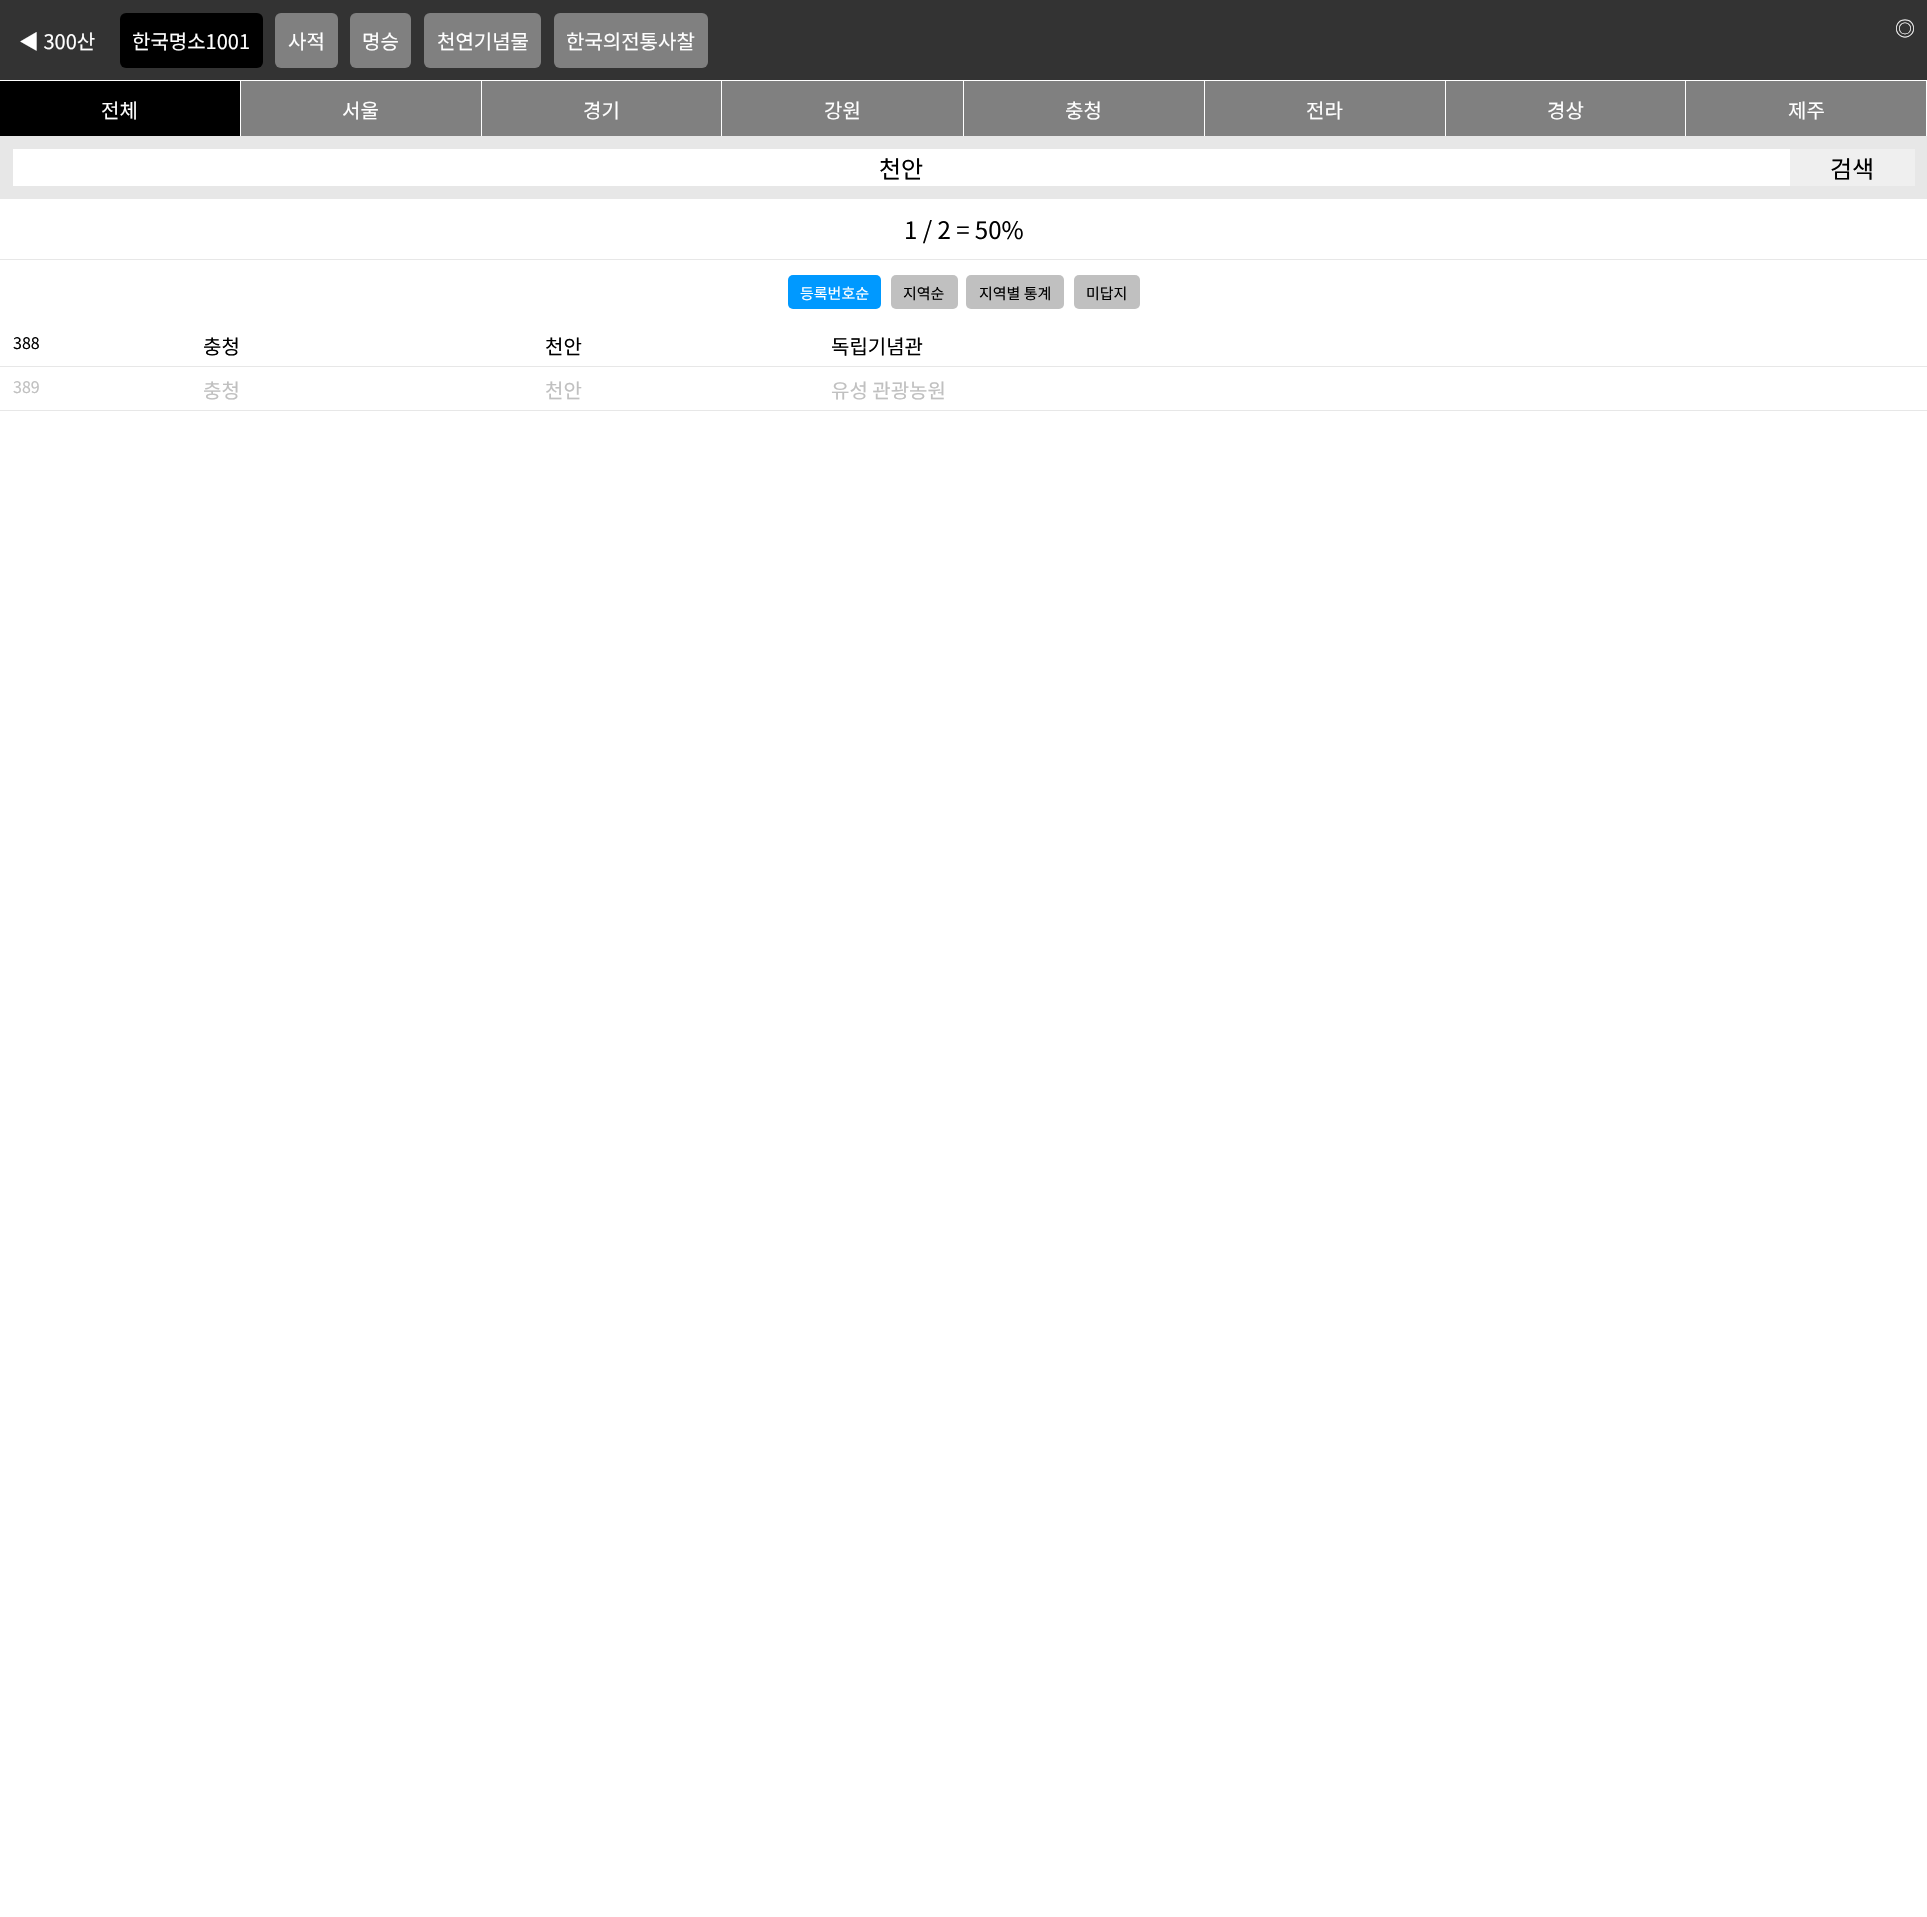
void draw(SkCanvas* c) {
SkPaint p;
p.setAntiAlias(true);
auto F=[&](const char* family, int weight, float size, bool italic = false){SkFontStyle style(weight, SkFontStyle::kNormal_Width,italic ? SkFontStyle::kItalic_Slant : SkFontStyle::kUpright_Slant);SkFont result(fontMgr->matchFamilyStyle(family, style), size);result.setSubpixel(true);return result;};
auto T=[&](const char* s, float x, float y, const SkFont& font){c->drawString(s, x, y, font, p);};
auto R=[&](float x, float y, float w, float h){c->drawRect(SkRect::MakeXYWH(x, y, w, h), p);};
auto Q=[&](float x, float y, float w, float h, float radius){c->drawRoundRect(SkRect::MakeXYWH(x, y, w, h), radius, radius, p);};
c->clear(0xffffffff);
p.setColor(0xff333333);
R(0,0,1927,80);
auto f1 = F("Noto Sans KR",400,20);
p.setColor(0xffffffff);
T("◎",1895,36,f1);
T("◀ 300산",19,49,f1);
p.setColor(0xff000000);
Q(120,13,143,55,6);
p.setColor(0xffffffff);
T("한국명소1001",132,49,f1);
p.setColor(0xff808080);
Q(275,13,63,55,6);
p.setColor(0xffffffff);
T("사적",288,49,f1);
p.setColor(0xff808080);
Q(350,13,61,55,6);
p.setColor(0xffffffff);
T("명승",362,49,f1);
p.setColor(0xff808080);
Q(424,13,117,55,6);
p.setColor(0xffffffff);
T("천연기념물",437,49,f1);
p.setColor(0xff808080);
Q(554,13,154,55,6);
p.setColor(0xffffffff);
T("한국의전통사찰",566,49,f1);
p.setColor(0xff000000);
R(0,81,240,55);
p.setColor(0xffffffff);
T("전체",101,118,f1);
p.setColor(0xff808080);
R(241,81,722,55);
p.setColor(0xffffffff);
R(481,80,1,56);
T("서울",342,118,f1);
R(721,80,1,56);
T("경기",583,118,f1);
T("강원",824,118,f1);
p.setColor(0xff808080);
R(964,81,240,55);
p.setColor(0xffffffff);
T("충청",1065,118,f1);
p.setColor(0xff808080);
R(1205,81,240,55);
p.setColor(0xffffffff);
T("전라",1306,118,f1);
p.setColor(0xff808080);
R(1446,81,239,55);
p.setColor(0xffffffff);
T("경상",1547,118,f1);
p.setColor(0xff808080);
R(1686,81,240,55);
p.setColor(0xffffffff);
T("제주",1788,118,f1);
p.setColor(0xffe7e7e7);
R(0,136,1927,63);
p.setColor(0xffffffff);
R(13,149,1777,37);
auto f2 = F("Noto Sans KR",400,24);
p.setColor(0xff000000);
T("천안",879,178,f2);
p.setColor(0xffefefef);
R(1790,149,125,37);
p.setColor(0xff000000);
T("검색",1830,178,f2);
p.setColor(0xffe7e7e7);
R(0,259,1927,1);
p.setColor(0xff000000);
T("1 / 2 = 50%",904,239,f2);
p.setColor(0xff0099ff);
Q(788,275,93,34,5);
auto f3 = F("Noto Sans KR",400,15);
p.setColor(0xffffffff);
T("등록번호순",800,299,f3);
p.setColor(0xffc0c0c0);
Q(891,275,67,34,5);
p.setColor(0xff000000);
T("지역순",903,299,f3);
p.setColor(0xffc0c0c0);
Q(966,275,98,34,5);
p.setColor(0xff000000);
T("지역별 통계",979,299,f3);
p.setColor(0xffc0c0c0);
Q(1074,275,66,34,5);
p.setColor(0xff000000);
T("미답지",1086,299,f3);
p.setColor(0xffe7e7e7);
R(0,366,1927,1);
auto f4 = F("Noto Sans KR",400,16);
p.setColor(0xff000000);
T("388",13,349,f4);
T("충청",203,354,f1);
T("천안",545,354,f1);
T("독립기념관",831,354,f1);
p.setColor(0xffe7e7e7);
R(0,410,1927,1);
p.setColor(0xffc0c0c0);
T("389",13,393,f4);
T("충청",203,398,f1);
T("천안",545,398,f1);
T("유성 관광농원",831,398,f1);
}
